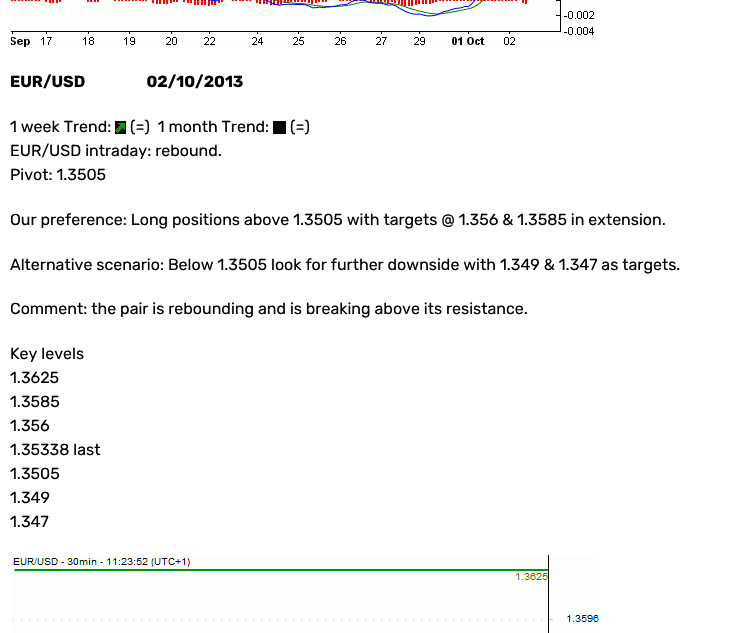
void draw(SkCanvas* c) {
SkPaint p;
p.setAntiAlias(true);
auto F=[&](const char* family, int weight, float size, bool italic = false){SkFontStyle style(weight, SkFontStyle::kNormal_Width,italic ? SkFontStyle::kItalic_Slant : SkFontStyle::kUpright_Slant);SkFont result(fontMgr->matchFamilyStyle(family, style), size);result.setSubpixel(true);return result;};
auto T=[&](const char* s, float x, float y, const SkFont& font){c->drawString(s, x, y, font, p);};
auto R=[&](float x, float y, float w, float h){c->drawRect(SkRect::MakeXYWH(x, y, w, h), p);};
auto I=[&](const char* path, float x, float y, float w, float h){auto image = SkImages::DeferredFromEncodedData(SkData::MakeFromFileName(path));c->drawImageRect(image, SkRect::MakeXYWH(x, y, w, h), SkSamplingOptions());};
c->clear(0xffffffff);
I("1.png",11,0,583,47);
auto f1 = F("Rubik",700,16);
p.setColor(0xff030303);
T("EUR/USD                  02/10/2013",10,87,f1);
auto f2 = F("Rubik",400,16);
T("1 week Trend:",10,132,f2);
I("2.png",115,121,11,13);
T("(=)  1 month Trend:",130,132,f2);
p.setColor(0xff040204);
R(273,121,13,13);
p.setColor(0xff030303);
T("(=)",290,132,f2);
T("EUR/USD intraday: rebound.",10,156,f2);
T("Pivot: 1.3505",10,180,f2);
T("Our preference: Long positions above 1.3505 with targets @ 1.356 & 1.3585 in extension.",10,225,f2);
T("Alternative scenario: Below 1.3505 look for further downside with 1.349 & 1.347 as targets.",10,270,f2);
T("Comment: the pair is rebounding and is breaking above its resistance.",10,314,f2);
T("Key levels",10,359,f2);
T("1.3625",10,383,f2);
T("1.3585",10,407,f2);
T("1.356",10,431,f2);
T("1.35338 last",10,455,f2);
T("1.3505",10,479,f2);
T("1.349",10,503,f2);
T("1.347",10,527,f2);
I("3.png",13,555,586,78);
}
